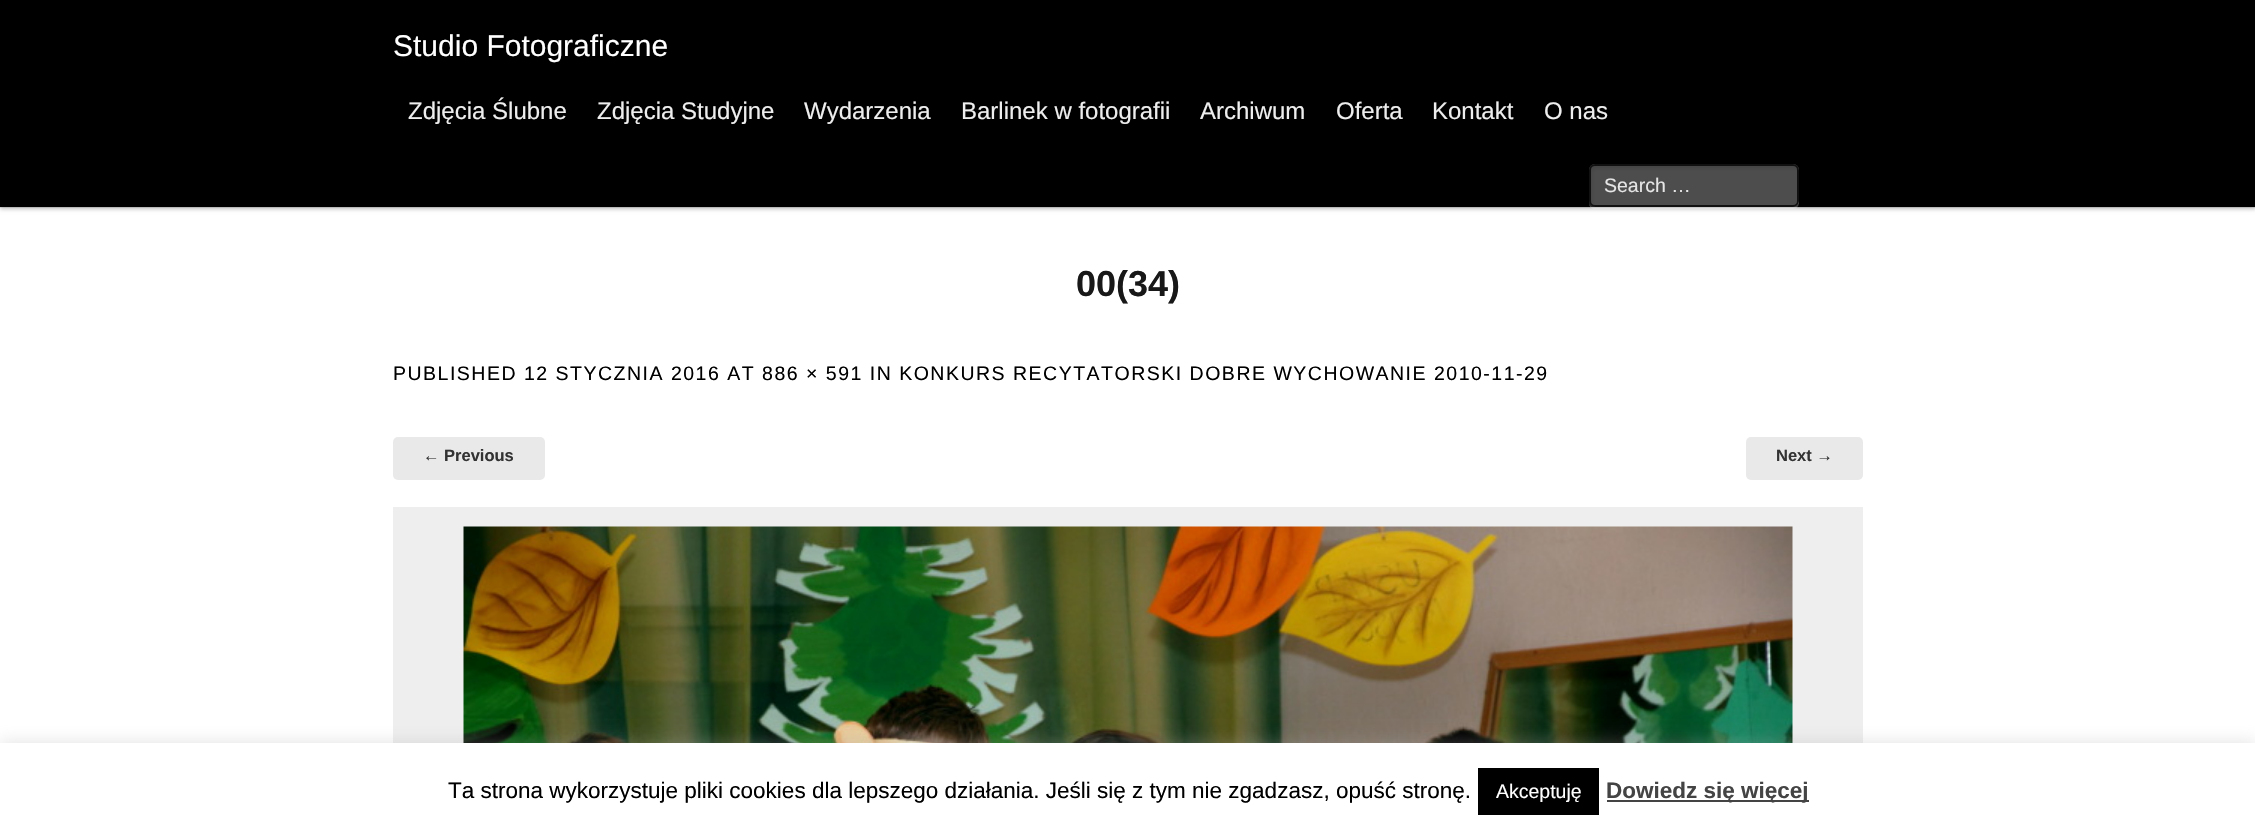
void draw(SkCanvas* c) {
SkPaint p;
p.setAntiAlias(true);
auto F=[&](const char* family, int weight, float size, bool italic = false){SkFontStyle style(weight, SkFontStyle::kNormal_Width,italic ? SkFontStyle::kItalic_Slant : SkFontStyle::kUpright_Slant);SkFont result(fontMgr->matchFamilyStyle(family, style), size);result.setSubpixel(true);return result;};
auto T=[&](const char* s, float x, float y, const SkFont& font){c->drawString(s, x, y, font, p);};
auto L=[&](const char* s, float x, float y, const SkFont& font, const SkPaint& ink, float letter, float word){std::vector<SkGlyphID> glyphs(font.countText(s, strlen(s), SkTextEncoding::kUTF8));std::vector<float> xs(glyphs.size());font.textToGlyphs(s, strlen(s), SkTextEncoding::kUTF8, glyphs);font.getXPos(glyphs, xs, x);float extra = 0;for (size_t i = 0; i < glyphs.size(); i++) {xs[i] += extra;extra += letter + word * (glyphs[i] == font.unicharToGlyph(' '));}c->drawTextBlob(SkTextBlob::MakeFromPosHGlyphs(glyphs, xs, y, font), 0, 0, ink);};
auto R=[&](float x, float y, float w, float h){c->drawRect(SkRect::MakeXYWH(x, y, w, h), p);};
auto Q=[&](float x, float y, float w, float h, float radius){c->drawRoundRect(SkRect::MakeXYWH(x, y, w, h), radius, radius, p);};
auto I=[&](const char* path, float x, float y, float w, float h){auto image = SkImages::DeferredFromEncodedData(SkData::MakeFromFileName(path));c->drawImageRect(image, SkRect::MakeXYWH(x, y, w, h), SkSamplingOptions());};
auto P=[&](const char* data, bool evenOdd = false){SkPath result = *SkParsePath::FromSVGString(data);if (evenOdd) result.setFillType(SkPathFillType::kEvenOdd);return result;};
c->clear(0xffffffff);
p.setColor(0x40000000);
p.setMaskFilter(SkMaskFilter::MakeBlur(kNormal_SkBlurStyle, 2));
c->drawRect(SkRect::MakeXYWH(0,2,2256,207),p);
p.setMaskFilter(nullptr);
p.setColor(0xff000000);
R(0,0,2255,207);
p.setColor(0x1a000000);
R(0,207,2255,1);
auto f1 = F("Liberation Sans",400,30);
p.setColor(0xffffffff);
T("Studio Fotograficzne",393,56,f1);
auto f2 = F("Liberation Sans",400,24);
p.setColor(0xffeeeeee);
T("Zdjęcia Ślubne",408,119,f2);
T("Zdjęcia Studyjne",597,119,f2);
T("Wydarzenia",804,119,f2);
T("Barlinek w fotografii",961,119,f2);
T("Archiwum",1200,119,f2);
T("Oferta",1336,119,f2);
T("Kontakt",1432,119,f2);
T("O nas",1544,119,f2);
p.setColor(0x40ffffff);
c->drawPath(P("M1589 203c0 4 3 6 6 6h198c3 0 6-3 6-6v-32l-1-3v22c0 5 3 17-6 17h-198c-2 0-4-1-5-4z"),p);
p.setColor(0x4dffffff);
Q(1589,164,210,43,6);
I("1.png",1590,165,208,40);
p.setStroke(true);
p.setStrokeWidth(2);
p.setColor(0xff111111);
c->drawRoundRect(SkRect::MakeXYWH(1590,165,208,41),5,5,p);
auto f3 = F("Liberation Sans",400,19.5);
p.setStroke(false);
p.setColor(0xffe6e6e6);
T("Search …",1604,192,f3);
auto f4 = F("Liberation Sans",700,36);
p.setColor(0xff181818);
T("00(34)",1076,296,f4);
p.setColor(0xff000000);
L("PUBLISHED 12 STYCZNIA 2016 AT 886 × 591 IN KONKURS RECYTATORSKI DOBRE WYCHOWANIE 2010-11-29",393,380,f3,p,1.5,0);
p.setColor(0xffe9e9e9);
Q(393,437,152,43,5);
auto f5 = F("Liberation Sans",700,16.5);
p.setColor(0xff333333);
T("← Previous",423,461,f5);
p.setColor(0xffe9e9e9);
Q(1746,437,117,43,5);
p.setColor(0xff333333);
T("Next →",1776,461,f5);
p.setColor(0xffeeeeee);
R(393,507,1470,236);
I("2.png",463,526,1330,217);
p.setColor(0x4dacabab);
p.setMaskFilter(SkMaskFilter::MakeBlur(kNormal_SkBlurStyle, 7.5));
c->drawRect(SkRect::MakeXYWH(0,741,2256,90),p);
p.setMaskFilter(nullptr);
p.setColor(0xffffffff);
R(0,743,2255,89);
auto f6 = F("Liberation Sans",400,22.5);
p.setColor(0xff000000);
T("Ta strona wykorzystuje pliki cookies dla lepszego działania. Jeśli się z tym nie zgadzasz, opuść stronę.",448,798,f6);
R(1478,768,121,47);
p.setColor(0xffffffff);
T("Akceptuję",1496,798,f3);
p.setColor(0xff444444);
R(1607,800,202,2);
auto f7 = F("Liberation Sans",700,22.5);
T("Dowiedz się więcej",1606,798,f7);
}
